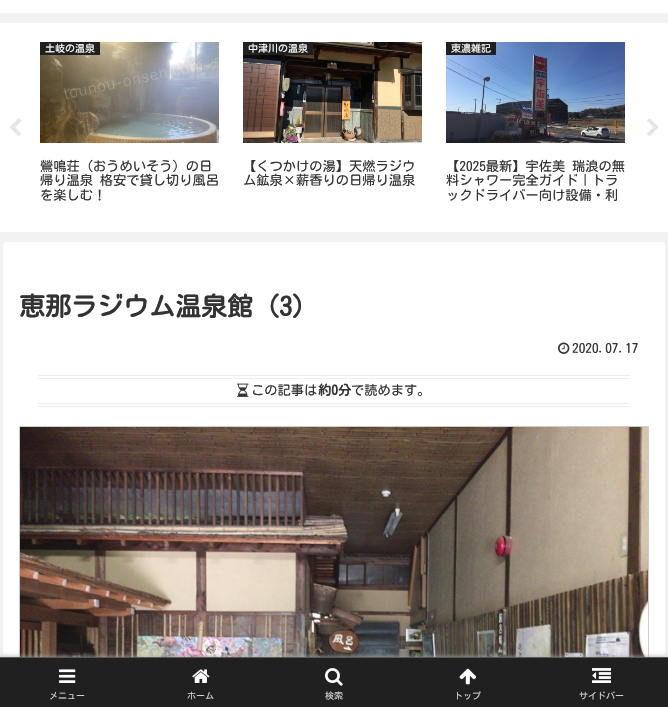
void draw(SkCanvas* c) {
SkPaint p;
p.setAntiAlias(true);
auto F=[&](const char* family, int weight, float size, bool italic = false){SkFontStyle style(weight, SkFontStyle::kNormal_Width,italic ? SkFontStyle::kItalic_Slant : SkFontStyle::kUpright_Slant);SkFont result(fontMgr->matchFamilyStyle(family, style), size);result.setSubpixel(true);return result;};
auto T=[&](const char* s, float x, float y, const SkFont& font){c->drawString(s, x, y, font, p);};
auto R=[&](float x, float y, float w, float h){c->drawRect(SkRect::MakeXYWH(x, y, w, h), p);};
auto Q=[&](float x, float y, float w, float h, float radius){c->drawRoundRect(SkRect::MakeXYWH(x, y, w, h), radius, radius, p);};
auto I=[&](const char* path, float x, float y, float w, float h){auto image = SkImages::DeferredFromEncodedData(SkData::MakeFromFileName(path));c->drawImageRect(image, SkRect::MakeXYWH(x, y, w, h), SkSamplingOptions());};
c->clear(0xfff2f2f2);
p.setColor(0xffffffff);
R(0,0,668,13);
R(0,23,668,209);
I("1.png",10,118,12,18);
I("2.png",40,42,179,101);
p.setColor(0xff202020);
R(40,42,60,13);
auto f1 = F("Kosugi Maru",400,10);
p.setColor(0xffffffff);
T("土岐の温泉",45,52,f1);
auto f2 = F("Kosugi Maru",400,13.25);
p.setColor(0xff333333);
T("鶯鳴荘（おうめいそう）の日",40,171,f2);
T("帰り温泉 格安で貸し切り風呂",40,185,f2);
T("を楽しむ！",40,200,f2);
I("3.png",243,42,179,101);
p.setColor(0xff202020);
R(243,42,70,13);
p.setColor(0xffffffff);
T("中津川の温泉",248,52,f1);
p.setColor(0xff333333);
T("【くつかけの湯】天燃ラジウ",243,171,f2);
T("ム鉱泉×薪香りの日帰り温泉",243,185,f2);
I("4.png",446,42,179,101);
p.setColor(0xff202020);
R(446,42,50,13);
p.setColor(0xffffffff);
T("東濃雑記",451,52,f1);
p.setColor(0xff333333);
T("【2025最新】宇佐美 瑞浪の無",446,171,f2);
T("料シャワー完全ガイド｜トラ",446,185,f2);
T("ックドライバー向け設備・利",446,200,f2);
I("5.png",647,118,12,18);
p.setColor(0xffffffff);
Q(3,242,662,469,4);
auto f3 = F("Kosugi Maru",700,26);
p.setColor(0xff333333);
T("恵那ラジウム温泉館 (3)",19,316,f3);
I("6.png",558,342,12,12);
T("2020.07.17",572,353,f2);
p.setColor(0xffeeeeee);
R(38,375,592,1);
R(38,378,592,1);
R(38,403,592,1);
R(38,406,592,1);
I("7.png",237,383,12,14);
p.setColor(0xff333333);
T("この記事は",251,395,f2);
auto f4 = F("Kosugi Maru",700,13.25);
T("約0分",318,395,f4);
T("で読めます。",351,395,f2);
p.setStroke(true);
p.setStrokeWidth(1);
p.setColor(0xffcccccc);
c->drawRect(SkRect::MakeXYWH(19.5,426.5,629,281),p);
I("8.png",20,427,628,230);
p.setStroke(false);
p.setColor(0xffa9a9a9);
p.setMaskFilter(SkMaskFilter::MakeBlur(kNormal_SkBlurStyle, 2.5));
c->drawRect(SkRect::MakeXYWH(0,657,668,50),p);
p.setMaskFilter(nullptr);
p.setColor(0xff202020);
R(0,658,668,49);
p.setColor(0xff595857);
R(0,657,668,1);
I("9.png",59,669,17,14);
auto f5 = F("Kosugi Maru",400,9);
p.setColor(0xffd2d2d2);
T("メニュー",49,699,f5);
I("10.png",192,669,18,14);
T("ホーム",187,699,f5);
I("11.png",325,668,18,18);
T("検索",325,699,f5);
I("12.png",459,668,17,17);
T("トップ",454,699,f5);
I("13.png",592,668,19,15);
T("サイドバー",579,699,f5);
}
